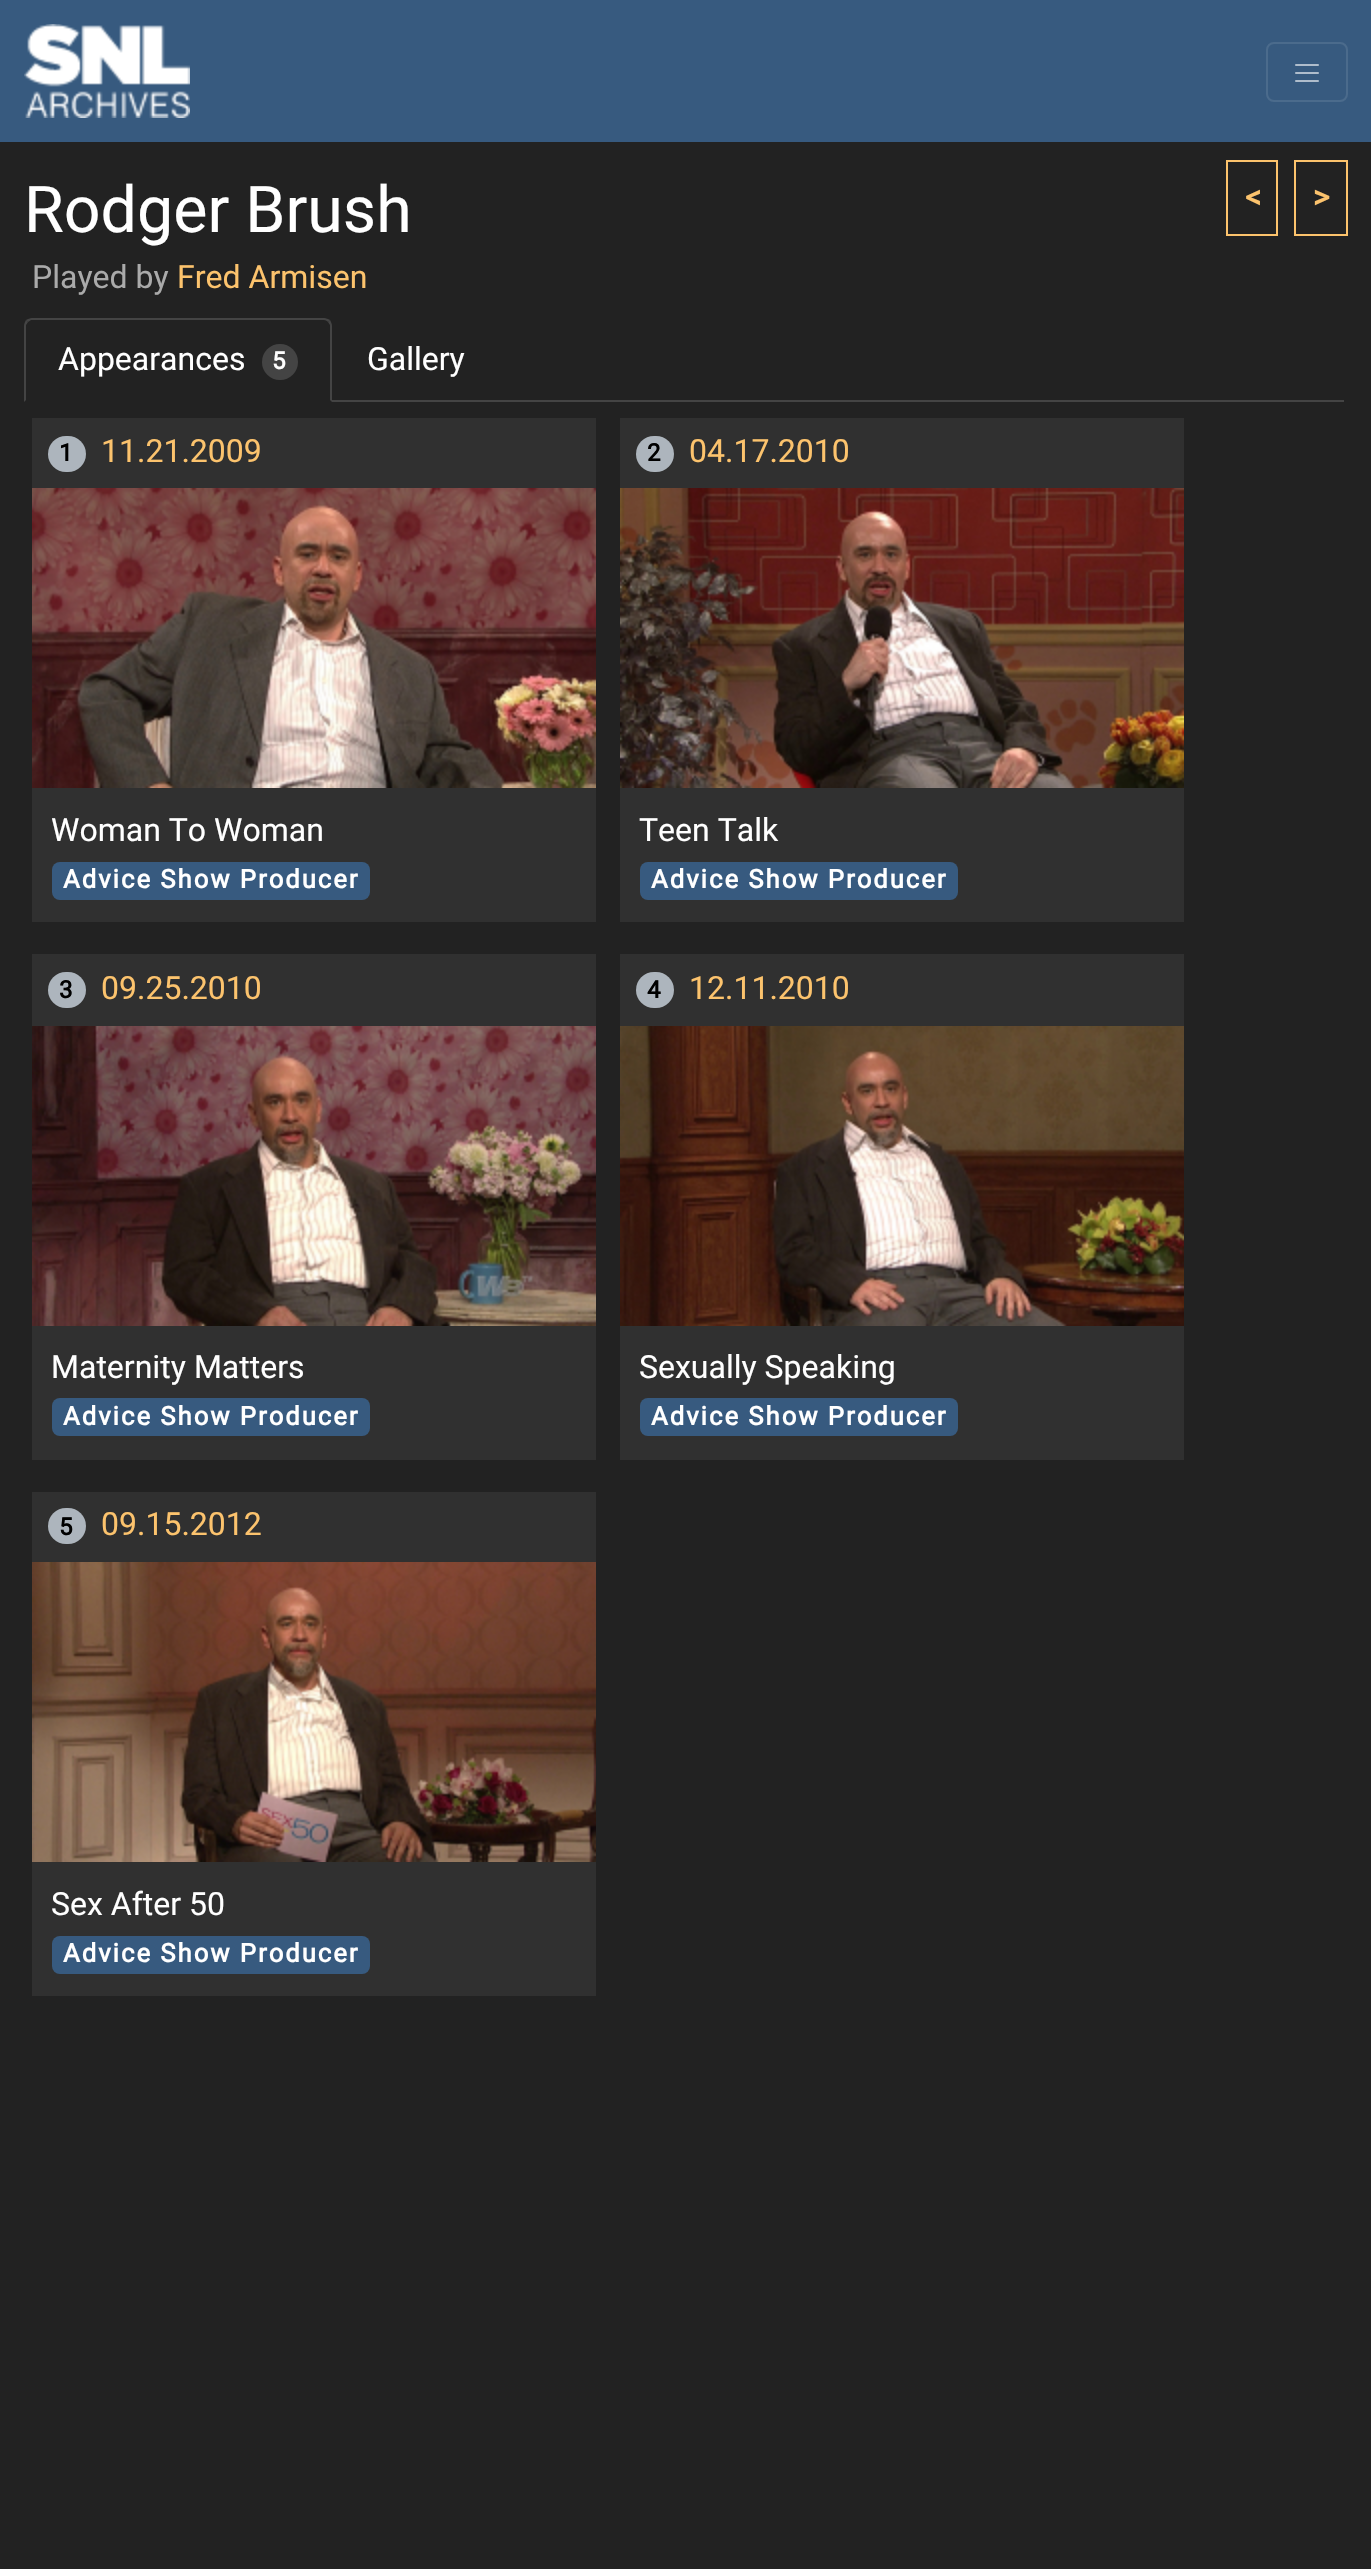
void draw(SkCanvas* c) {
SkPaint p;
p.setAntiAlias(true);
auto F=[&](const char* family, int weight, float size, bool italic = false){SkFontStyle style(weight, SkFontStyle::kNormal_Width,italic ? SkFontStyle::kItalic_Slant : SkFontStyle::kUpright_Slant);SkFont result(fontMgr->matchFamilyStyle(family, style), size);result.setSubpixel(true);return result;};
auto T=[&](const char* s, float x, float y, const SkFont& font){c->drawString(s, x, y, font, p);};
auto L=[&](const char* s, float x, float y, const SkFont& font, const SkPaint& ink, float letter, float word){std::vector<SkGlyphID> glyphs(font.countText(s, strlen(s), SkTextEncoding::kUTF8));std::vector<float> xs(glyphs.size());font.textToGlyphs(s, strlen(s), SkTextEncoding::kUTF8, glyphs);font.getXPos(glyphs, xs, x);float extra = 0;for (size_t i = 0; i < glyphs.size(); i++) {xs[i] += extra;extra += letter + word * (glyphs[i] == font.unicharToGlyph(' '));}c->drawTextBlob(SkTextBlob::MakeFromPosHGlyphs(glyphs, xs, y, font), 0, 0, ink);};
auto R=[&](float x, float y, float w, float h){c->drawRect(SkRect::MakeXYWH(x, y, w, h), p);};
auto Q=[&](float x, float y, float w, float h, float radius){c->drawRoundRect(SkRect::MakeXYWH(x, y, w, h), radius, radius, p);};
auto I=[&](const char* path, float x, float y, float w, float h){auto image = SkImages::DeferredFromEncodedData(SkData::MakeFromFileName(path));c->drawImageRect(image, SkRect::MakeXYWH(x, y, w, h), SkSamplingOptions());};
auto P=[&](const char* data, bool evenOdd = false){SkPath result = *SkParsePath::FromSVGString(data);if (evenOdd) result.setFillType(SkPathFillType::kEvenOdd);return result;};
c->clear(0xff222222);
p.setColor(0xff375a7f);
R(0,0,1371,142);
I("1.png",24,24,166,94);
p.setStroke(true);
p.setStrokeWidth(2);
p.setColor(0xff4b6b8c);
c->drawRoundRect(SkRect::MakeXYWH(1267,43,80,58),7,7,p);
I("2.png",1295,64,24,18);
auto f1 = F("Heebo",400,64.5);
p.setStroke(false);
p.setColor(0xffffffff);
T("Rodger Brush",24,232,f1);
p.setStroke(true);
p.setColor(0xfffcc36d);
c->drawRect(SkRect::MakeXYWH(1227,161,50,74),p);
auto f2 = F("Heebo",700,32);
p.setStroke(false);
T("<",1244,208,f2);
p.setStroke(true);
c->drawRect(SkRect::MakeXYWH(1295,161,52,74),p);
p.setStroke(false);
T(">",1313,208,f2);
auto f3 = F("Heebo",400,32);
p.setColor(0xffaaaaaa);
T("Played by",32,288,f3);
p.setColor(0xfffcc36d);
T("Fred Armisen",177,288,f3);
p.setColor(0xff444444);
R(332,400,1012,2);
c->drawPath(P("M32 318c-2 0-4 1-6 2l2 2l3-2h293c2 0 3 1 4 2l2-2c-2-1-4-2-6-2z"),p);
c->drawPath(P("M332 402v-76c0-2-1-4-2-6l-2 2l2 3v75z"),p);
c->drawPath(P("M24 402l2-2v-75l2-3l-2-2c-1 2-2 4-2 6z"),p);
p.setColor(0xffffffff);
T("Appearances",58,370,f3);
p.setColor(0xff444444);
c->drawCircle(280,362,18,p);
auto f4 = F("Heebo",700,24);
p.setColor(0xffffffff);
L("5",272,369,f4,p,2,0);
T("Gallery",367,370,f3);
p.setColor(0xff303030);
R(32,418,564,504);
p.setColor(0xffadb5bd);
Q(48,436,38,36,18);
p.setColor(0xff000000);
L("1",59,461,f4,p,2,0);
p.setColor(0xfffcc36d);
T("11.21.2009",101,462,f3);
I("3.png",32,488,564,300);
p.setColor(0xffffffff);
T("Woman To Woman",51,841,f3);
p.setColor(0xff375a7f);
Q(52,862,318,38,8);
auto f5 = F("Heebo",700,25.6);
p.setColor(0xffffffff);
L("Advice Show Producer",63,888,f5,p,2,0);
p.setColor(0xff303030);
R(620,418,564,504);
p.setColor(0xffadb5bd);
Q(636,436,38,36,18);
p.setColor(0xff000000);
L("2",647,461,f4,p,2,0);
p.setColor(0xfffcc36d);
T("04.17.2010",689,462,f3);
I("4.png",620,488,564,300);
p.setColor(0xffffffff);
T("Teen Talk",639,841,f3);
p.setColor(0xff375a7f);
Q(640,862,318,38,8);
p.setColor(0xffffffff);
L("Advice Show Producer",651,888,f5,p,2,0);
p.setColor(0xff303030);
R(32,954,564,506);
p.setColor(0xffadb5bd);
Q(48,972,38,36,18);
p.setColor(0xff000000);
L("3",59,998,f4,p,2,0);
p.setColor(0xfffcc36d);
T("09.25.2010",101,999,f3);
I("5.png",32,1026,564,300);
p.setColor(0xffffffff);
T("Maternity Matters",51,1378,f3);
p.setColor(0xff375a7f);
Q(52,1398,318,38,8);
p.setColor(0xffffffff);
L("Advice Show Producer",63,1425,f5,p,2,0);
p.setColor(0xff303030);
R(620,954,564,506);
p.setColor(0xffadb5bd);
Q(636,972,38,36,18);
p.setColor(0xff000000);
L("4",647,998,f4,p,2,0);
p.setColor(0xfffcc36d);
T("12.11.2010",689,999,f3);
I("6.png",620,1026,564,300);
p.setColor(0xffffffff);
T("Sexually Speaking",639,1378,f3);
p.setColor(0xff375a7f);
Q(640,1398,318,38,8);
p.setColor(0xffffffff);
L("Advice Show Producer",651,1425,f5,p,2,0);
p.setColor(0xff303030);
R(32,1492,564,504);
p.setColor(0xffadb5bd);
Q(48,1508,38,36,18);
p.setColor(0xff000000);
L("5",59,1535,f4,p,2,0);
p.setColor(0xfffcc36d);
T("09.15.2012",101,1535,f3);
I("7.png",32,1562,564,300);
p.setColor(0xffffffff);
T("Sex After 50",51,1915,f3);
p.setColor(0xff375a7f);
Q(52,1936,318,38,8);
p.setColor(0xffffffff);
L("Advice Show Producer",63,1962,f5,p,2,0);
}
